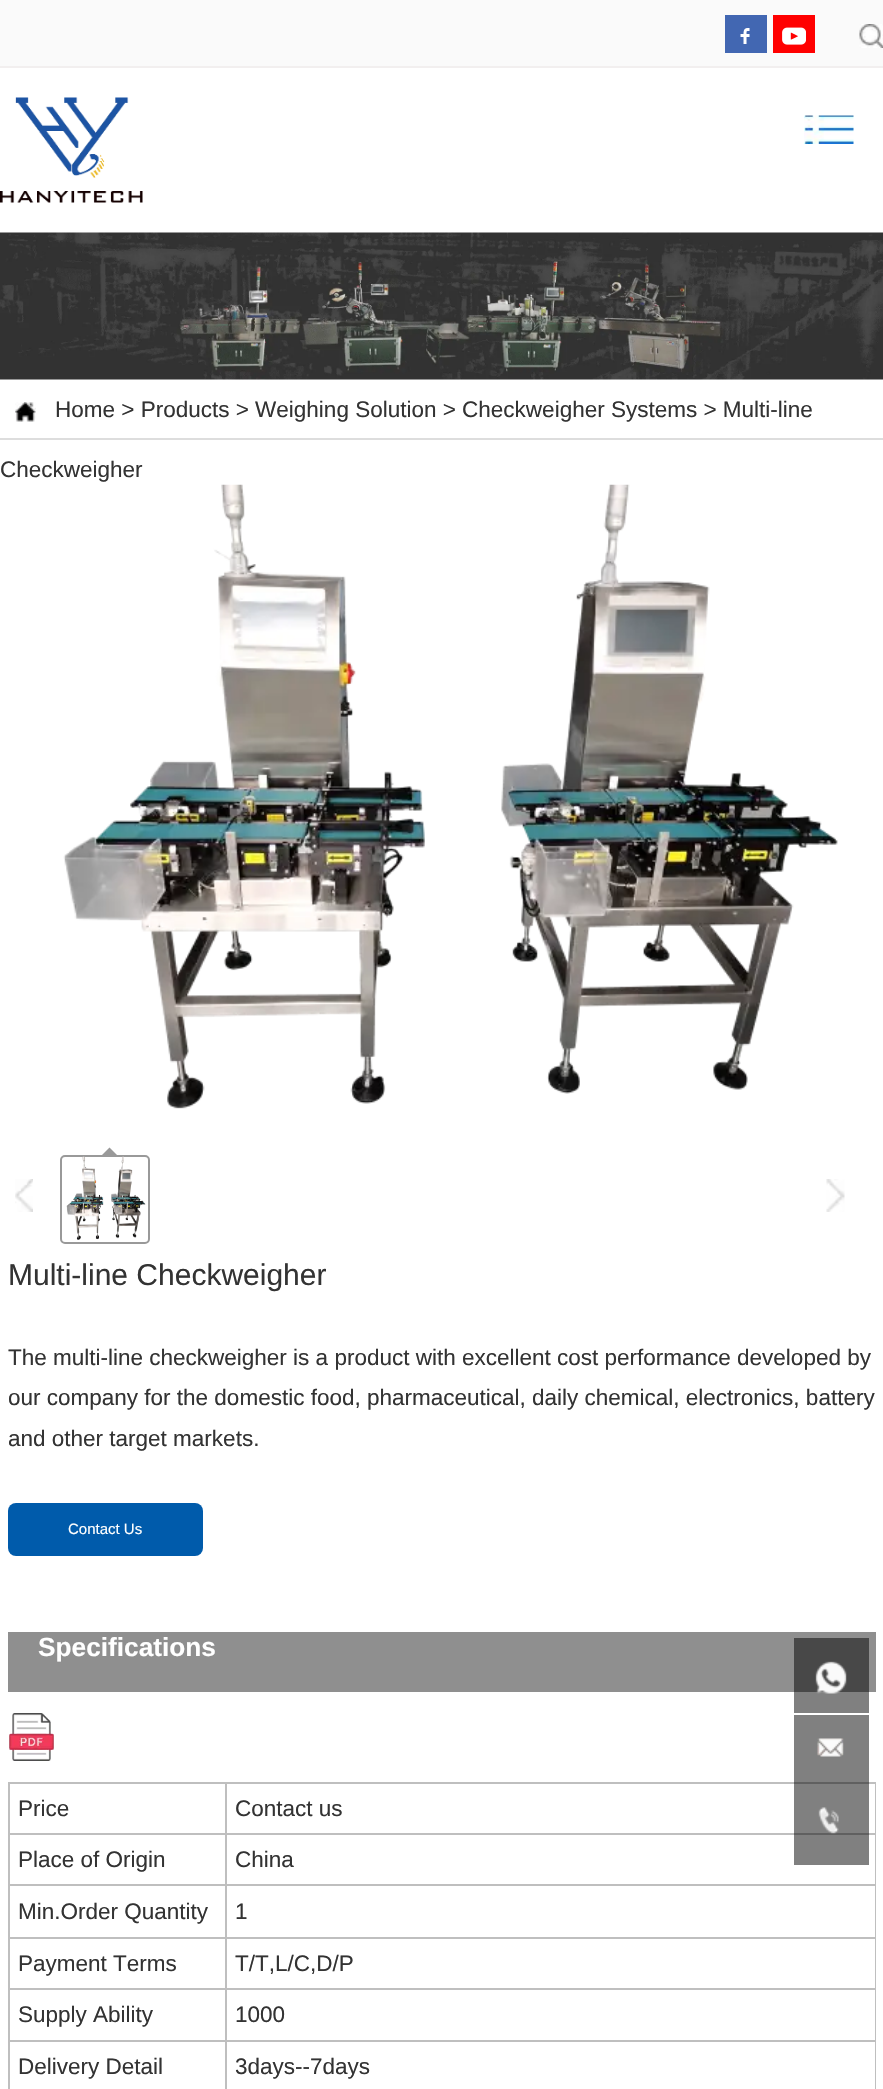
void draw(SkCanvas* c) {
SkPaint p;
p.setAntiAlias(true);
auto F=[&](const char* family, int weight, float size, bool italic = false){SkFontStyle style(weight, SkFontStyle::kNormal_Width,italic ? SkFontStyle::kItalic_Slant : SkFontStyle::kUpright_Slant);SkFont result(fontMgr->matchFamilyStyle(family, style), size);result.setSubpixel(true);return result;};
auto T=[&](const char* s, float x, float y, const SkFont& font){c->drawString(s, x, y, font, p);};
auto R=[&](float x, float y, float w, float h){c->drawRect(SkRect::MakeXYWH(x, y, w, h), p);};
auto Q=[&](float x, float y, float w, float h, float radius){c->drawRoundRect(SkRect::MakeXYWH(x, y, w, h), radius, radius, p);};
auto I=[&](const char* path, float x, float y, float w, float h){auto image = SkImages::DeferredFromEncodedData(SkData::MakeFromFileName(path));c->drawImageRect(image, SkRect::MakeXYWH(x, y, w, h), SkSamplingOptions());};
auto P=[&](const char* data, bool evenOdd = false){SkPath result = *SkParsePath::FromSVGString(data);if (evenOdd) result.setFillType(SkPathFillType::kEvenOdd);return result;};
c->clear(0xffffffff);
p.setColor(0xff808080);
R(794,1715,75,150);
R(794,1692,75,21);
p.setColor(0xfffafafa);
R(0,0,883,66);
p.setColor(0xfff2efef);
R(0,66,883,2);
p.setColor(0xff4267b2);
R(725,15,42,38);
I("1.png",740,28,10,16);
p.setColor(0xffff0000);
R(773,15,42,38);
I("2.png",782,27,24,18);
I("3.png",859,24,24,24);
I("4.png",0,97,143,106);
I("5.png",804,115,50,29);
I("6.png",0,232,883,148);
p.setColor(0xffdddddd);
R(0,438,883,2);
I("7.png",15,402,21,20);
auto f1 = F("Liberation Sans",400,22.5);
p.setColor(0xff333333);
T("Home > Products > Weighing Solution > Checkweigher Systems > Multi-line",55,417,f1);
T("Checkweigher",0,477,f1);
I("8.png",63,484,775,625);
p.setColor(0xff999999);
c->drawPath(P("M117 1155h-15l7.5-7.5z"),p);
p.setStroke(true);
p.setStrokeWidth(2);
c->drawRoundRect(SkRect::MakeXYWH(61,1156,88,87),4,4,p);
I("9.png",66,1156,80,84);
I("10.png",15,1179,18,33);
I("11.png",826,1179,19,33);
auto f2 = F("Liberation Sans",400,30);
p.setStroke(false);
p.setColor(0xff333333);
T("Multi-line Checkweigher",8,1285,f2);
T("The multi-line checkweigher is a product with excellent cost performance developed by",8,1365,f1);
T("our company for the domestic food, pharmaceutical, daily chemical, electronics, battery",8,1405,f1);
T("and other target markets.",8,1446,f1);
p.setColor(0xff005bab);
Q(8,1503,195,53,8);
auto f3 = F("Liberation Sans",400,15);
p.setColor(0xffffffff);
T("Contact Us",68,1534,f3);
p.setColor(0xff8f8f8f);
R(8,1632,868,60);
p.setColor(0xff484848);
R(794,1638,75,54);
auto f4 = F("Liberation Sans",700,26.25);
p.setColor(0xffffffff);
T("Specifications",38,1656,f4);
I("12.png",9,1713,45,48);
p.setColor(0xffbfbfbf);
R(225,1782,651,2);
R(225,1833,651,2);
R(225,1884,651,2);
R(225,1937,651,2);
R(225,1988,651,2);
R(225,2040,651,2);
R(225,2040,2,49);
R(8,2040,219,2);
R(225,1988,2,54);
R(8,1988,219,2);
R(225,1937,2,52);
R(8,1937,219,2);
R(225,1884,2,54);
R(8,1884,219,2);
R(225,1833,2,53);
R(8,1833,219,2);
R(225,1782,2,53);
R(8,1782,219,2);
R(8,2040,2,49);
R(8,1988,2,54);
R(8,1937,2,52);
R(8,1884,2,54);
R(8,1833,2,53);
R(8,1782,2,53);
p.setColor(0xff333333);
T("Price",18,1816,f1);
p.setColor(0xff606060);
R(794,1782,75,2);
p.setColor(0xffbfbfbf);
R(875,2040,1,49);
R(875,1988,1,54);
R(875,1937,1,52);
R(875,1884,1,54);
R(875,1833,1,53);
R(875,1782,1,53);
p.setColor(0xff333333);
T("Contact us",235,1816,f1);
T("Place of Origin",18,1867,f1);
p.setColor(0xff606060);
R(794,1833,75,2);
p.setColor(0xff333333);
T("China",235,1867,f1);
T("Min.Order Quantity",18,1919,f1);
T("1",235,1919,f1);
T("Payment Terms",18,1971,f1);
T("T/T,L/C,D/P",235,1971,f1);
T("Supply Ability",18,2022,f1);
T("1000",235,2022,f1);
T("Delivery Detail",18,2074,f1);
T("3days--7days",235,2074,f1);
I("13.png",815,1661,32,33);
I("14.png",817,1738,27,19);
I("15.png",818,1807,21,27);
}
